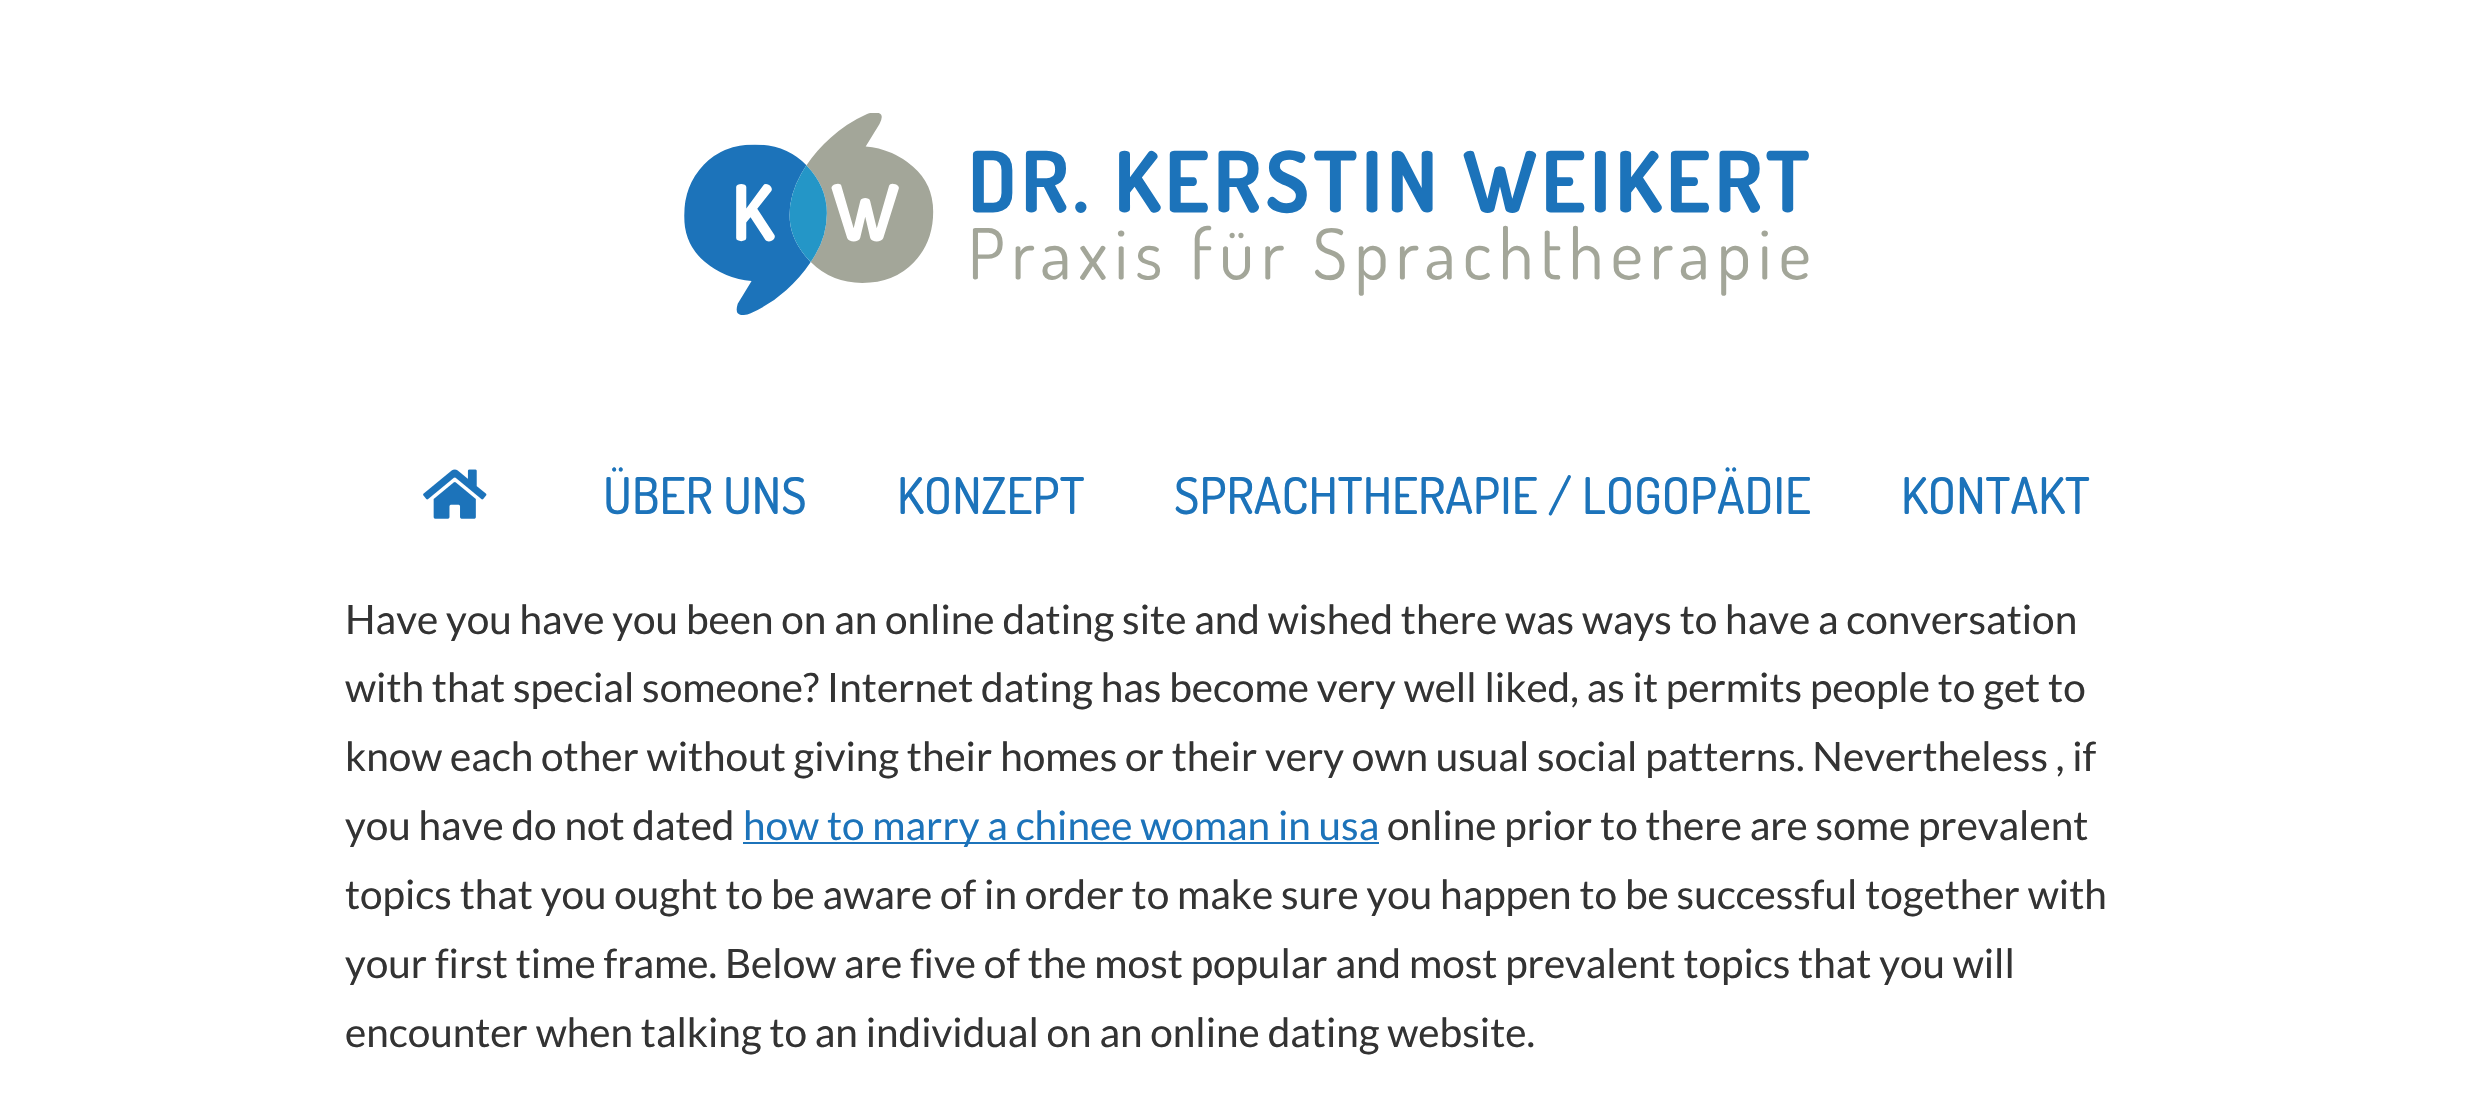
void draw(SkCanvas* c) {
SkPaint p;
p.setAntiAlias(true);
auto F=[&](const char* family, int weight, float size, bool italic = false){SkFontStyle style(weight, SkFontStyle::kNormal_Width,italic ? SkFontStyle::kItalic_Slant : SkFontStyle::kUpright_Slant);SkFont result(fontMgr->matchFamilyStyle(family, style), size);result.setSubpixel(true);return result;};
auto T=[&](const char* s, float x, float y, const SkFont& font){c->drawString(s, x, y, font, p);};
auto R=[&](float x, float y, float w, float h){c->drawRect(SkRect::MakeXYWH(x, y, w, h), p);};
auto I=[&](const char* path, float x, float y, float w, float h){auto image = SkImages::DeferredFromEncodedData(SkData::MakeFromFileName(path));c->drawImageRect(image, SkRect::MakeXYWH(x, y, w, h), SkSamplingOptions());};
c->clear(0xffffffff);
I("1.png",684,113,1125,202);
I("2.png",423,469,64,50);
auto f1 = F("Dosis",200,50.6);
p.setColor(0xff1c73ba);
T("ÜBER UNS",603,514,f1);
T("KONZEPT",897,514,f1);
T("SPRACHTHERAPIE / LOGOPÄDIE",1174,514,f1);
T("KONTAKT",1901,514,f1);
auto f2 = F("Lato",400,40.5);
p.setColor(0xff333333);
T("Have you have you been on an online dating site and wished there was ways to have a conversation",345,634,f2);
T("with that special someone? Internet dating has become very well liked, as it permits people to get to",345,702,f2);
T("know each other without giving their homes or their very own usual social patterns. Nevertheless , if",345,771,f2);
T("you have do not dated",345,840,f2);
p.setColor(0xff1c73ba);
R(743,842,636,2);
T("how to marry a chinee woman in usa",743,840,f2);
p.setColor(0xff333333);
T("online prior to there are some prevalent",1387,840,f2);
T("topics that you ought to be aware of in order to make sure you happen to be successful together with",345,909,f2);
T("your first time frame. Below are five of the most popular and most prevalent topics that you will",345,978,f2);
T("encounter when talking to an individual on an online dating website.",345,1047,f2);
}
